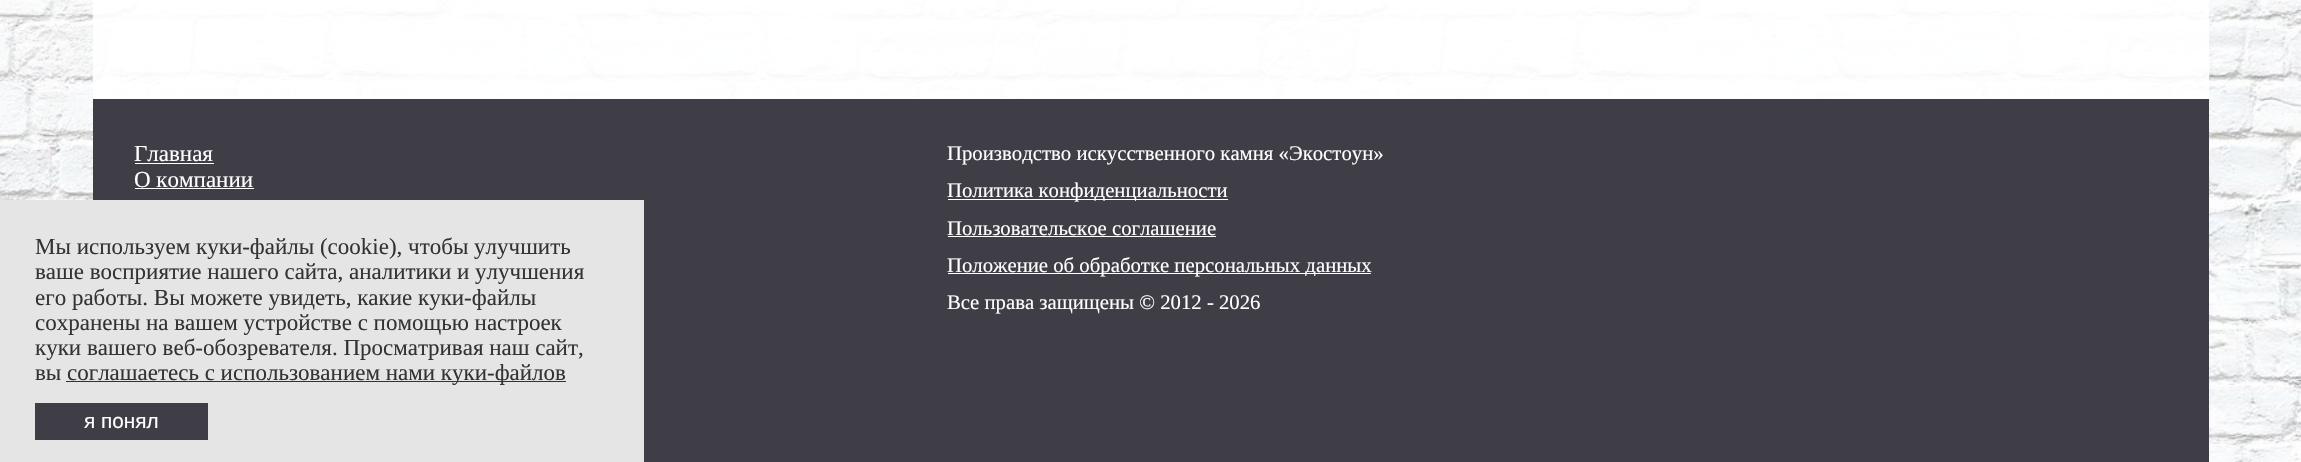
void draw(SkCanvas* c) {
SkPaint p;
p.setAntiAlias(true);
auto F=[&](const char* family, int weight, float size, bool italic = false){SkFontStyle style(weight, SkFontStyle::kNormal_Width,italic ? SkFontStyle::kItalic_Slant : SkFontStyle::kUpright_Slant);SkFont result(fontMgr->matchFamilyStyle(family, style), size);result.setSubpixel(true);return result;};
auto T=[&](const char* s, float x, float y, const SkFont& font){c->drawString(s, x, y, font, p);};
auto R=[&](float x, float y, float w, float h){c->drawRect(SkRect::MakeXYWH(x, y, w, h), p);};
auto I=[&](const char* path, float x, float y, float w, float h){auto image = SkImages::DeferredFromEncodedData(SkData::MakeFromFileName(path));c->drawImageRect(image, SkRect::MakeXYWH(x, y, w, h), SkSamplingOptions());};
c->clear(0xffffffff);
I("1.png",0,0,2301,462);
p.setColor(0xe6ffffff);
R(93,0,2116,99);
p.setColor(0xff3f3d45);
R(93,99,2116,363);
auto f1 = F("Liberation Serif",400,23);
p.setColor(0xffffffff);
T("Главная",134,161,f1);
R(135,163,79,1);
T("О компании",134,187,f1);
R(135,188,119,1);
auto f2 = F("Liberation Serif",400,20.75);
T("Производство искусственного камня «Экостоун»",947,160,f2);
R(948,199,280,1);
T("Политика конфиденциальности",947,197,f2);
T("Пользовательское соглашение",947,235,f2);
R(948,236,268,1);
R(948,273,423,1);
T("Положение об обработке персональных данных",947,272,f2);
T("Все права защищены © 2012 - 2026",947,309,f2);
p.setColor(0xffe4e5e4);
R(0,200,644,262);
p.setColor(0xff333333);
T("Мы используем куки-файлы (cookie), чтобы улучшить",35,254,f1);
T("ваше восприятие нашего сайта, аналитики и улучшения",35,279,f1);
T("его работы. Вы можете увидеть, какие куки-файлы",35,305,f1);
T("сохранены на вашем устройстве с помощью настроек",35,330,f1);
T("куки вашего веб-обозревателя. Просматривая наш сайт,",35,355,f1);
T("вы",35,380,f1);
R(66,381,500,1);
T("соглашаетесь с использованием нами куки-файлов",67,380,f1);
p.setColor(0xff3f3d45);
R(35,403,173,37);
auto f3 = F("Liberation Sans",400,20.75);
p.setColor(0xffffffff);
T("я понял",84,428,f3);
}
